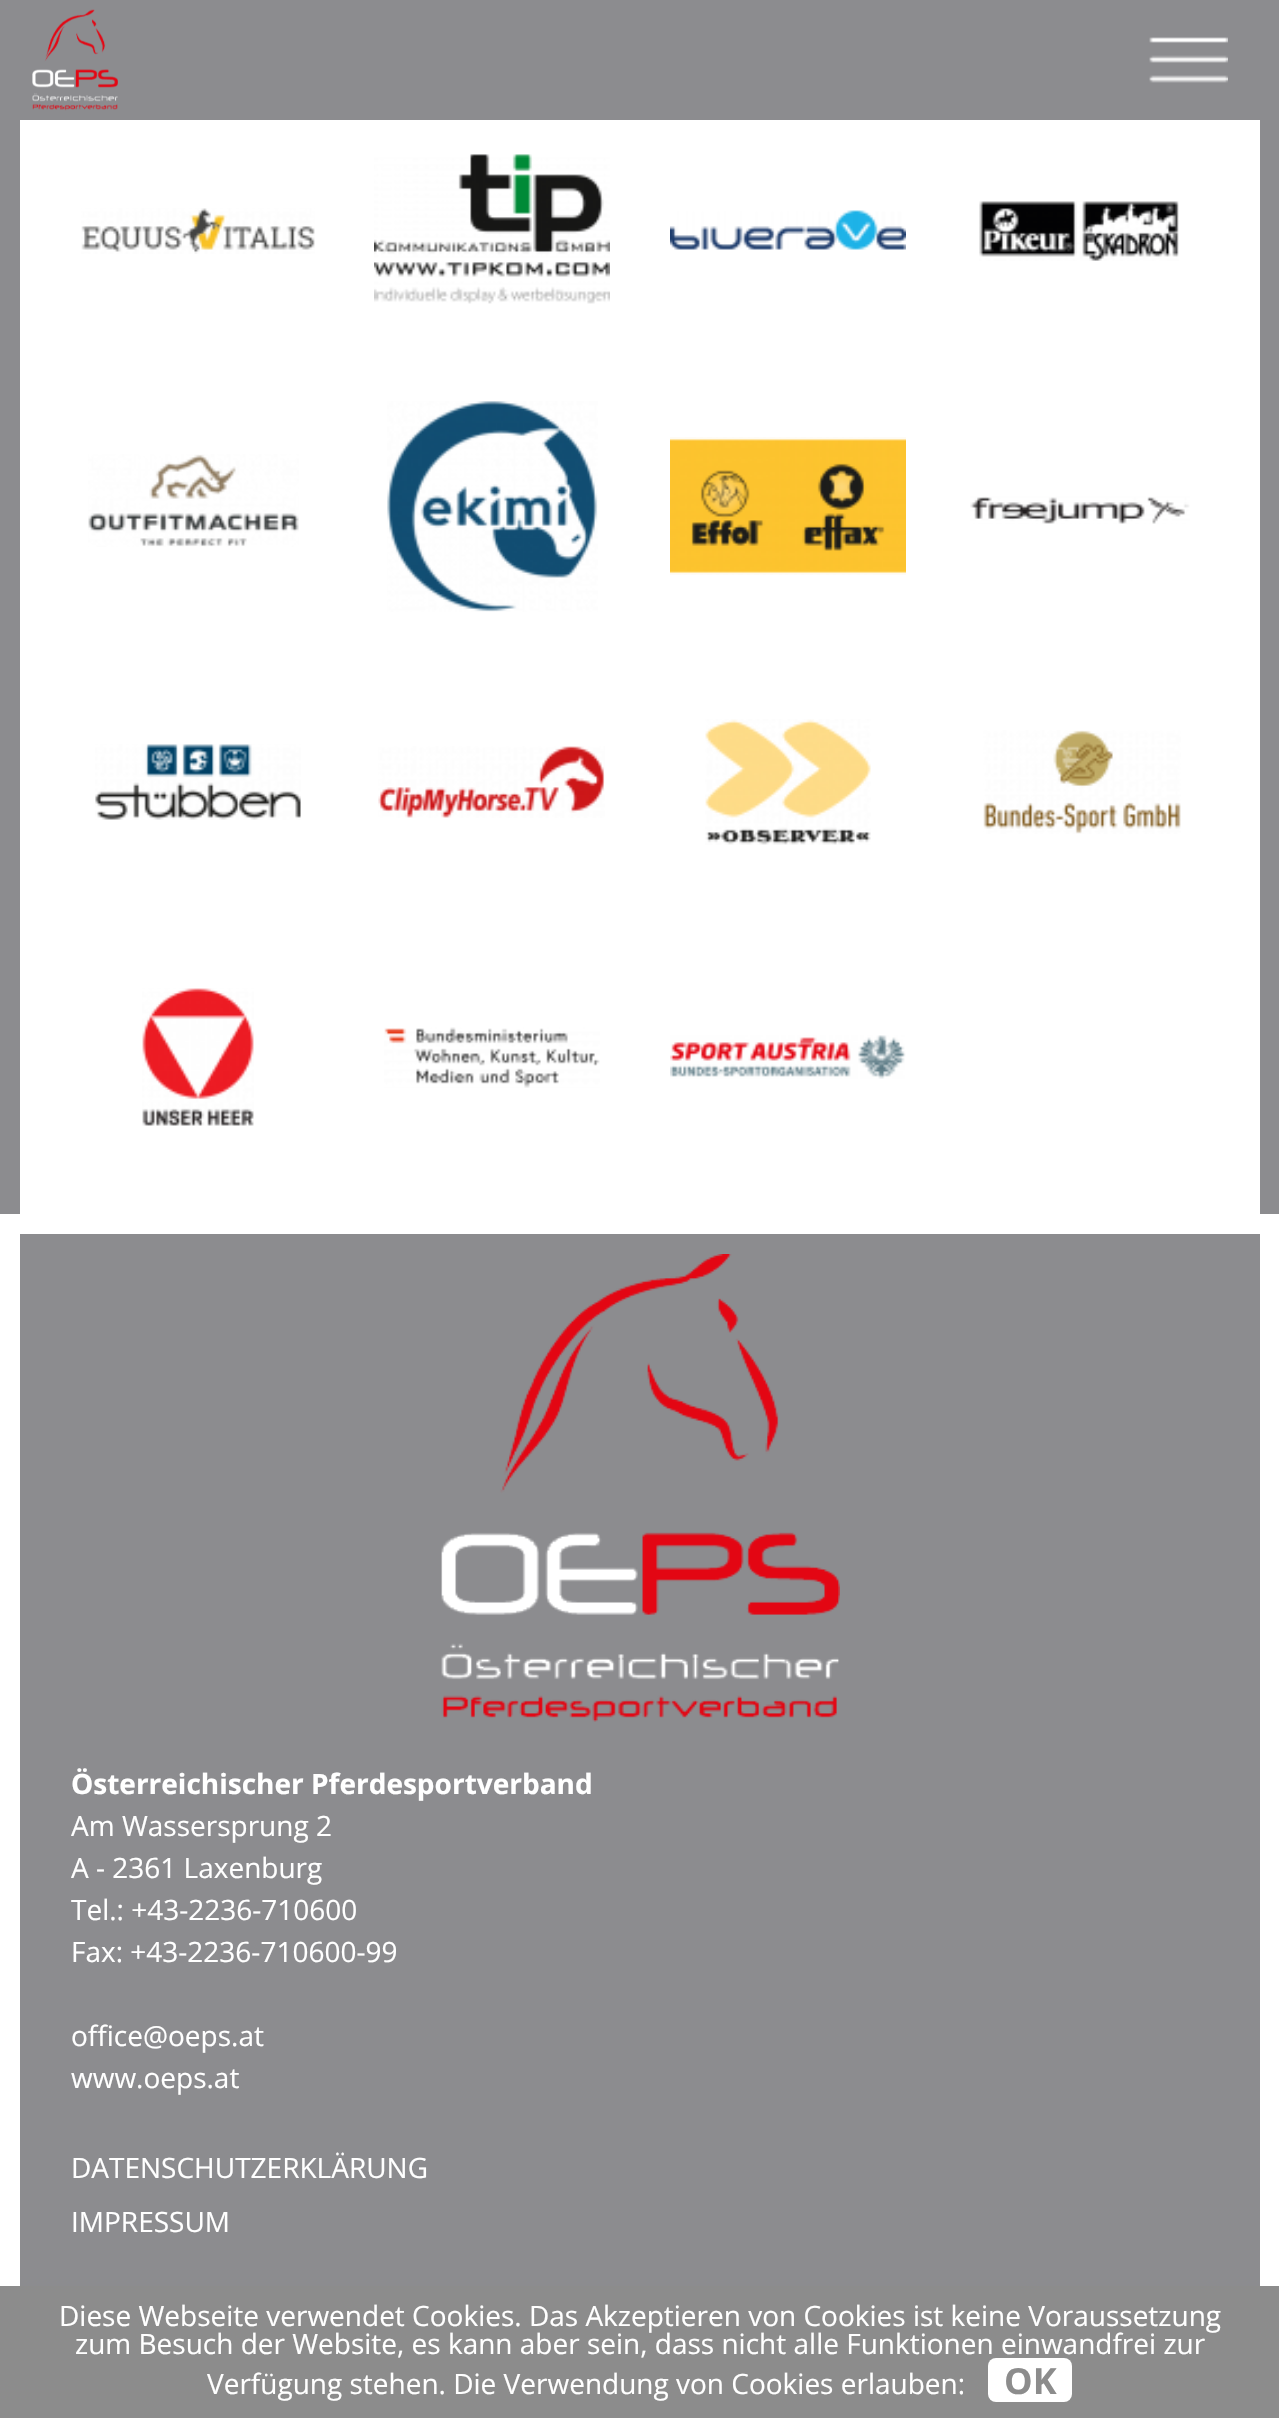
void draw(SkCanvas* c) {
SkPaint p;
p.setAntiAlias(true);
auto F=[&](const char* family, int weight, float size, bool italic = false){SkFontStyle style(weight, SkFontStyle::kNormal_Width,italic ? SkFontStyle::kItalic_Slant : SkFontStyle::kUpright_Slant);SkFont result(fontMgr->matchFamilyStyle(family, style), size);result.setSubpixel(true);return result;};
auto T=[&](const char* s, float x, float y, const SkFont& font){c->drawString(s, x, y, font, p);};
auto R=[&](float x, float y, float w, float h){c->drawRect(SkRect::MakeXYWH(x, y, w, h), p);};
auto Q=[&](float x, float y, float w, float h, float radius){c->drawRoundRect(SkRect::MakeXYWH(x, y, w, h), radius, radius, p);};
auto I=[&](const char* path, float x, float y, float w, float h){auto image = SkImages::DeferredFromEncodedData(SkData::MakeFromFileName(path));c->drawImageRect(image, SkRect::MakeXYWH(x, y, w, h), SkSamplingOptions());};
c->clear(0xff8c8c8f);
I("1.png",32,9,86,102);
I("2.png",1149,37,79,46);
p.setColor(0xffffffff);
R(20,120,1240,1094);
I("3.png",81,208,234,46);
I("4.png",374,154,236,150);
I("5.png",670,210,236,40);
I("6.png",979,201,200,60);
I("7.png",88,454,211,93);
I("8.png",387,401,211,211);
I("9.png",670,437,236,138);
I("10.png",970,496,220,28);
I("11.png",95,744,206,76);
I("12.png",378,746,227,72);
I("13.png",705,719,166,126);
I("14.png",983,730,198,104);
I("15.png",142,988,112,138);
I("16.png",384,1027,216,61);
I("17.png",670,1035,236,44);
R(0,1214,1279,1072);
p.setColor(0xff8c8c8f);
R(20,1234,1240,1052);
I("18.png",441,1254,399,468);
auto f1 = F("Open Sans",700,28);
p.setColor(0xffffffff);
T("Österreichischer Pferdesportverband",71,1794,f1);
auto f2 = F("Open Sans",400,28);
T("Am Wassersprung 2",71,1836,f2);
T("A - 2361 Laxenburg",71,1878,f2);
T("Tel.: +43-2236-710600",71,1920,f2);
T("Fax: +43-2236-710600-99",71,1962,f2);
T("office@oeps.at",71,2046,f2);
T("www.oeps.at",71,2088,f2);
T("DATENSCHUTZERKLÄRUNG",71,2178,f2);
T("IMPRESSUM",71,2232,f2);
p.setColor(0xff8c8c8c);
R(0,2286,1279,132);
p.setColor(0xffffffff);
T("Diese Webseite verwendet Cookies. Das Akzeptieren von Cookies ist keine Voraussetzung",59,2326,f2);
T("zum Besuch der Website, es kann aber sein, dass nicht alle Funktionen einwandfrei zur",75,2354,f2);
T("Verfügung stehen. Die Verwendung von Cookies erlauben:",207,2394,f2);
Q(988,2358,84,44,8);
auto f3 = F("Open Sans",700,36);
p.setColor(0xff8c8c8c);
T("OK",1004,2394,f3);
}
